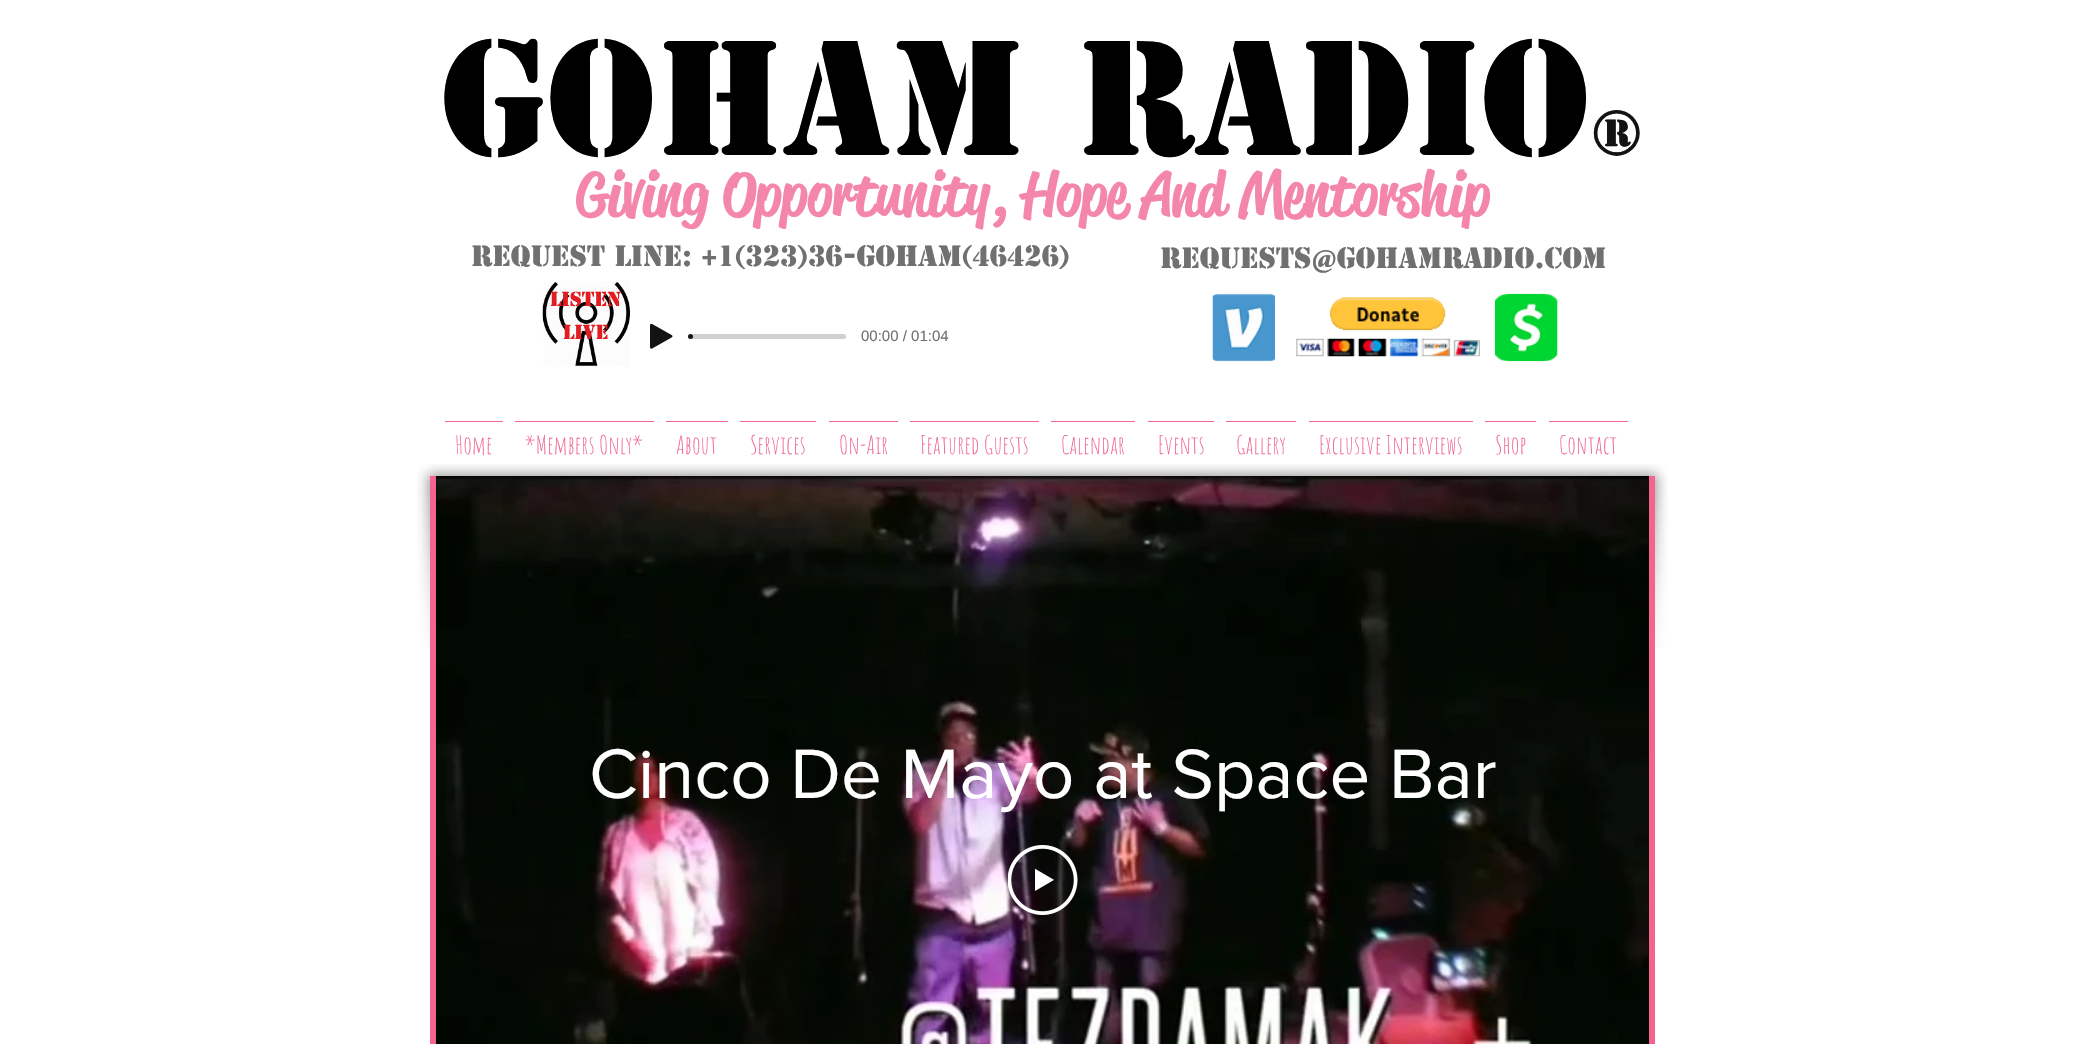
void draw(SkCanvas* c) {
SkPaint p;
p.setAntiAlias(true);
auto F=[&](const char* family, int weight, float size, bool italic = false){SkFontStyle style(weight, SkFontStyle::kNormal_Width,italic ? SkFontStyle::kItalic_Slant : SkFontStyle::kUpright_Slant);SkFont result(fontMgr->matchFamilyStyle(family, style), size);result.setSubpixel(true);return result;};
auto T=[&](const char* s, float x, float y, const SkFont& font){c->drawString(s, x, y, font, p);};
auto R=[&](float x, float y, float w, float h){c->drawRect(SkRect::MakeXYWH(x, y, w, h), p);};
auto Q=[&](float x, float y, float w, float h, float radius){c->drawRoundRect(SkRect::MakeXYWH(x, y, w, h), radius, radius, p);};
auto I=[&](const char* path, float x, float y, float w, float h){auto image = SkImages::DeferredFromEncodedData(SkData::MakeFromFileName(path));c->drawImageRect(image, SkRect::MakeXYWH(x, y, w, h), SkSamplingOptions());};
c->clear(0xffffffff);
auto f1 = F("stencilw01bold",700,152.5);
p.setColor(0xff000000);
T("GoHAM Radio",441,155,f1);
auto f2 = F("stencilw01bold",700,59);
p.setColor(0xff131313);
T("®",1589,155,f2);
auto f3 = F("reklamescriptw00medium",500,61.25);
p.setColor(0xfff386aa);
T("Giving Opportunity, Hope And Mentorship",576,215,f3);
auto f4 = F("stencilw01bold",700,27.5);
p.setColor(0xff717070);
T("Request Line: +1(323)36-GoHAM(46426)",471,266,f4);
T("requests@gohamradio.com",1160,268,f4);
I("4.png",542,281,88,86);
auto f5 = F("stencilw01bold",700,19);
p.setColor(0xffe21c21);
T("listeN",550,306,f5);
I("1.png",1212,293,63,69);
I("2.png",1296,297,184,60);
I("3.png",1495,293,63,69);
T("LIVE",563,339,f5);
I("5.png",650,324,23,25);
p.setColor(0xffd0d0d0);
Q(690,334,156,5,2.5);
p.setColor(0xff131313);
c->drawCircle(690.5,336.5,2.5,p);
auto f6 = F("Liberation Sans",400,15);
p.setColor(0xff717070);
T("00:00 / 01:04",861,341,f6);
p.setColor(0xfff2668f);
R(445,421,58,1);
auto f7 = F("Amatic SC",400,25);
T("Home",455,454,f7);
R(515,421,139,1);
T("*Members Only*",525,454,f7);
R(666,421,62,1);
T("About",676,454,f7);
R(740,421,76,1);
T("Services",750,454,f7);
R(829,421,69,1);
T("On-Air",839,454,f7);
R(910,421,129,1);
T("Featured Guests",920,454,f7);
R(1051,421,84,1);
T("Calendar",1061,454,f7);
R(1148,421,66,1);
T("Events",1158,454,f7);
R(1226,421,70,1);
T("Gallery",1236,454,f7);
R(1309,421,164,1);
T("Exclusive Interviews",1319,454,f7);
R(1485,421,51,1);
T("Shop",1495,454,f7);
R(1549,421,79,1);
T("Contact",1559,454,f7);
I("6.png",417,464,57,184);
I("7.png",473,464,1139,12);
I("8.png",1611,464,57,184);
p.setColor(0xfff4648e);
R(430,476,1225,568);
p.setColor(0xff000000);
R(436,476,1213,568);
I("9.png",436,476,1213,568);
I("10.png",436,476,1213,567);
auto f8 = F("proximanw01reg",400,72.5);
p.setColor(0xffffffff);
T("Cinco De Mayo at Space Bar",589,798,f8);
I("11.png",1008,845,70,70);
}
